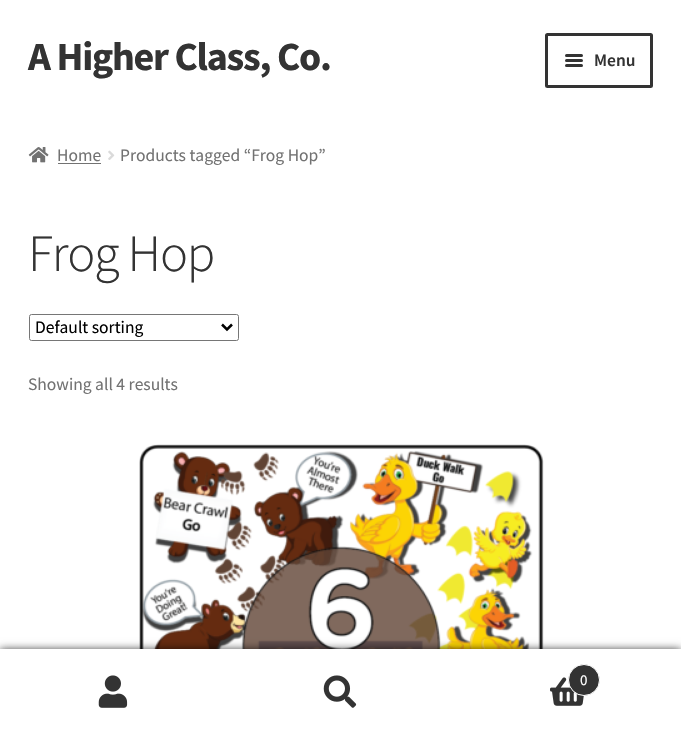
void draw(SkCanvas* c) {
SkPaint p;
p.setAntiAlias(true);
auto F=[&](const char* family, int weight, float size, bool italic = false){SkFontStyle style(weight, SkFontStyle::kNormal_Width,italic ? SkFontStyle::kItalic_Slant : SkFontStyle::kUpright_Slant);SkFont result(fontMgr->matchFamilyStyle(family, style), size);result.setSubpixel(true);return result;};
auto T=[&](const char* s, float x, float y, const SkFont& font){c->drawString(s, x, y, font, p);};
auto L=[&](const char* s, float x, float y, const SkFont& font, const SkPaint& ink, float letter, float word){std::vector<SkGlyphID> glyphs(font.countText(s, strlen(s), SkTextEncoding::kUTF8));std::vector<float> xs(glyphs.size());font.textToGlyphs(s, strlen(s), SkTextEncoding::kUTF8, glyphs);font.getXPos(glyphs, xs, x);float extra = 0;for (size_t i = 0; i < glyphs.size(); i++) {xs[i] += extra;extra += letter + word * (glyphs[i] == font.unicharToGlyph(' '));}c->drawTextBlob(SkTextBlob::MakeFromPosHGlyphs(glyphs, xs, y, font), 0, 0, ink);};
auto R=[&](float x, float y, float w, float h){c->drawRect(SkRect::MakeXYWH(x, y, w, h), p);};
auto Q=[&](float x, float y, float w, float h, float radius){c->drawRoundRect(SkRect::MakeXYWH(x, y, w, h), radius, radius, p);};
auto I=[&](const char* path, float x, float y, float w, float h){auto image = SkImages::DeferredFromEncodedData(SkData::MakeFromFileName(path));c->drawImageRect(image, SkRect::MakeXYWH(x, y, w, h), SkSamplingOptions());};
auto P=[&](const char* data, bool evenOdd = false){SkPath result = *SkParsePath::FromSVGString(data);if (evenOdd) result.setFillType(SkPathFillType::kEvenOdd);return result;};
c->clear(0xffffffff);
auto f1 = F("Source Sans Pro",700,40);
p.setColor(0xff333333);
L("A Higher Class, Co.",28,70,f1,p,-1.25,0);
p.setStroke(true);
p.setStrokeWidth(3);
c->drawRoundRect(SkRect::MakeXYWH(546.5,34.5,105,52),1,1,p);
p.setStroke(false);
Q(565,54,18,3,1.5);
Q(565,59,18,3,1.5);
auto f2 = F("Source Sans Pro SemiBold",600,17.5);
T("Menu",594,66,f2);
Q(565,64,18,3,1.5);
I("1.png",28,147,21,16);
auto f3 = F("Source Sans Pro",400,17.5);
p.setColor(0xff727272);
T("Home",57,161,f3);
R(58,163,43,1);
I("2.png",108,150,7,10);
T("Products tagged “Frog Hop”",120,161,f3);
auto f4 = F("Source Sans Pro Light",300,52.5);
p.setColor(0xff333333);
L("Frog Hop",28,271,f4,p,-1.25,0);
p.setStroke(true);
p.setStrokeWidth(1);
p.setColor(0xff767676);
c->drawRoundRect(SkRect::MakeXYWH(29.5,314.5,209,26),2,2,p);
p.setStrokeWidth(2.5);
p.setColor(0xff000000);
c->drawPath(P("M222 324.5l5 5l5-5"),p);
p.setStroke(false);
T("Default sorting",35,333,f3);
p.setColor(0xff727272);
T("Showing all 4 results",28,390,f3);
I("3.png",139,444,405,205);
p.setColor(0xb3000000);
p.setMaskFilter(SkMaskFilter::MakeBlur(kNormal_SkBlurStyle, 4));
c->drawRect(SkRect::MakeXYWH(0,649,681,86),p);
p.setMaskFilter(nullptr);
p.setColor(0xffffffff);
R(0,649,681,1);
R(0,650,681,85);
I("4.png",98,675,30,33);
I("5.png",323,675,34,33);
I("6.png",550,677,34,29);
p.setColor(0xff333333);
c->drawCircle(584,680,15.5,p);
p.setStroke(true);
p.setStrokeWidth(1);
p.setColor(0xffffffff);
c->drawCircle(584,680,15.5,p);
auto f5 = F("Source Sans Pro",400,15);
p.setStroke(false);
T("0",580,685,f5);
}
